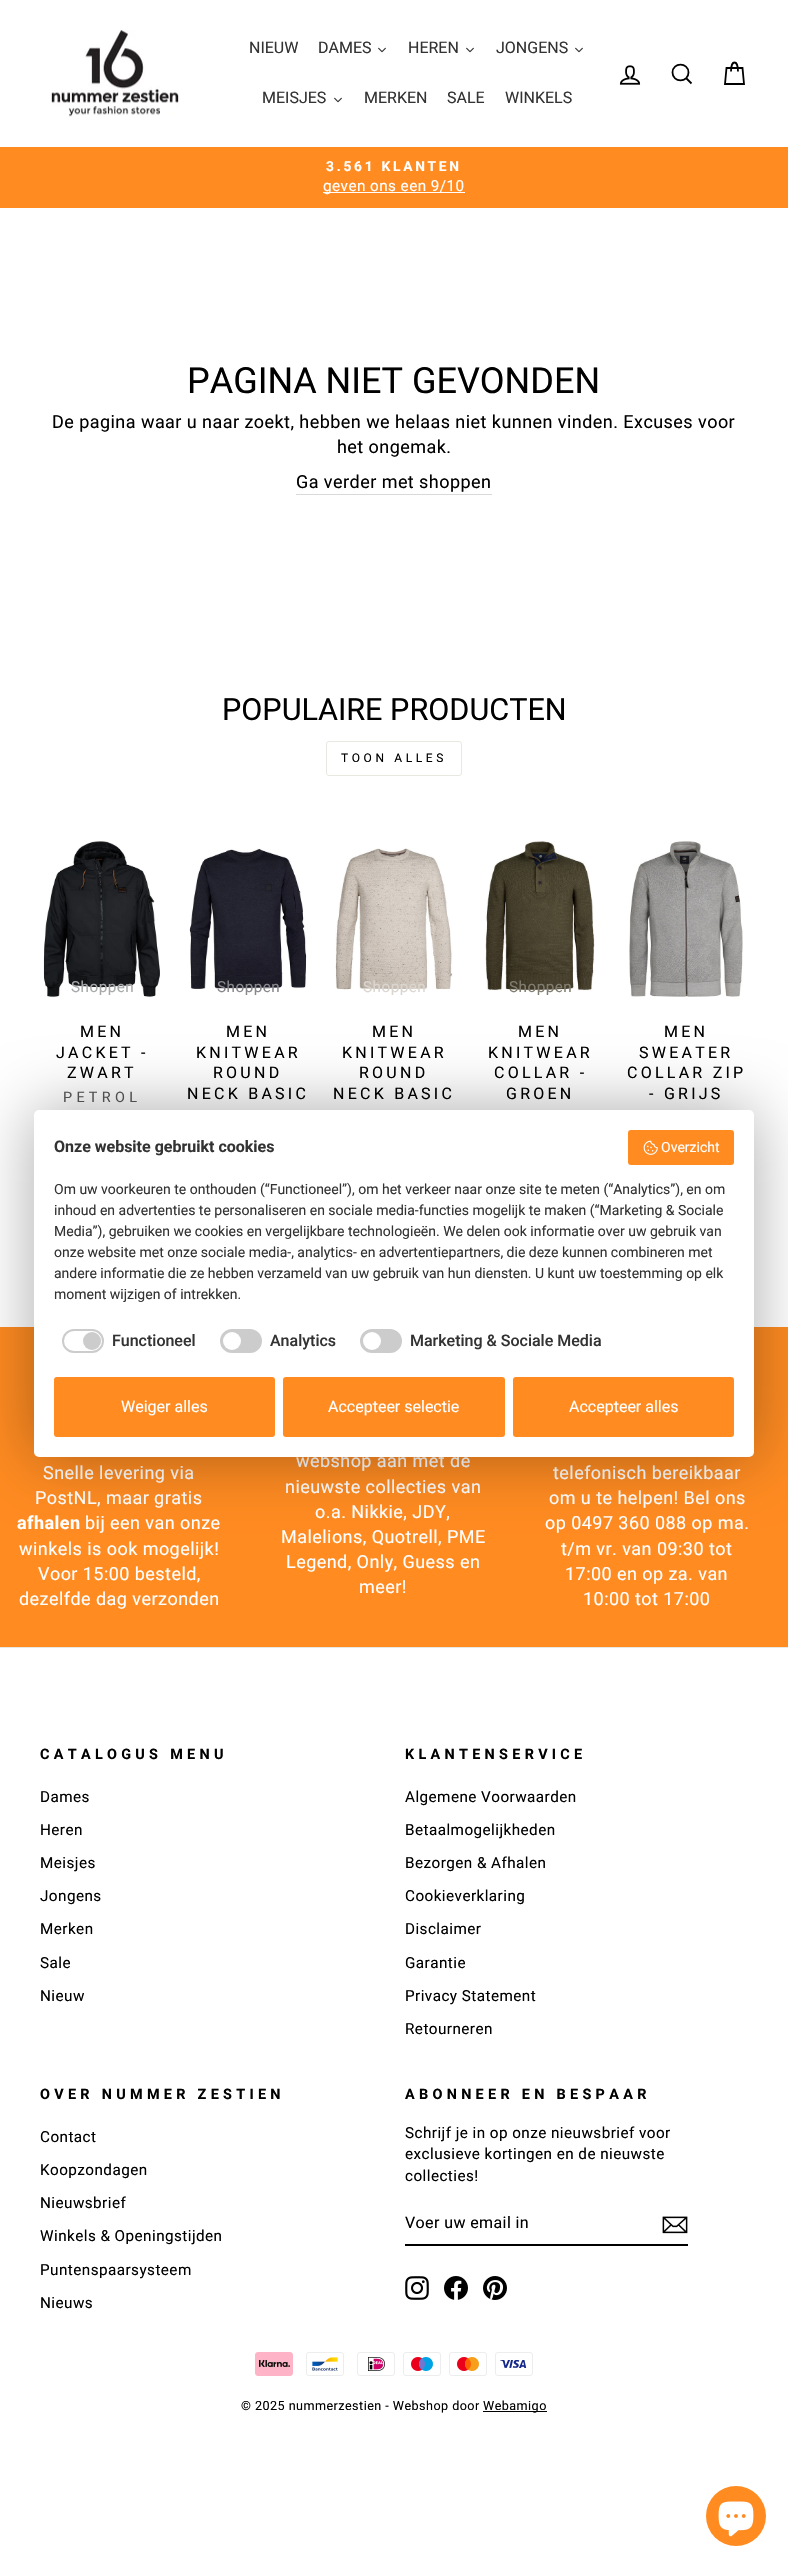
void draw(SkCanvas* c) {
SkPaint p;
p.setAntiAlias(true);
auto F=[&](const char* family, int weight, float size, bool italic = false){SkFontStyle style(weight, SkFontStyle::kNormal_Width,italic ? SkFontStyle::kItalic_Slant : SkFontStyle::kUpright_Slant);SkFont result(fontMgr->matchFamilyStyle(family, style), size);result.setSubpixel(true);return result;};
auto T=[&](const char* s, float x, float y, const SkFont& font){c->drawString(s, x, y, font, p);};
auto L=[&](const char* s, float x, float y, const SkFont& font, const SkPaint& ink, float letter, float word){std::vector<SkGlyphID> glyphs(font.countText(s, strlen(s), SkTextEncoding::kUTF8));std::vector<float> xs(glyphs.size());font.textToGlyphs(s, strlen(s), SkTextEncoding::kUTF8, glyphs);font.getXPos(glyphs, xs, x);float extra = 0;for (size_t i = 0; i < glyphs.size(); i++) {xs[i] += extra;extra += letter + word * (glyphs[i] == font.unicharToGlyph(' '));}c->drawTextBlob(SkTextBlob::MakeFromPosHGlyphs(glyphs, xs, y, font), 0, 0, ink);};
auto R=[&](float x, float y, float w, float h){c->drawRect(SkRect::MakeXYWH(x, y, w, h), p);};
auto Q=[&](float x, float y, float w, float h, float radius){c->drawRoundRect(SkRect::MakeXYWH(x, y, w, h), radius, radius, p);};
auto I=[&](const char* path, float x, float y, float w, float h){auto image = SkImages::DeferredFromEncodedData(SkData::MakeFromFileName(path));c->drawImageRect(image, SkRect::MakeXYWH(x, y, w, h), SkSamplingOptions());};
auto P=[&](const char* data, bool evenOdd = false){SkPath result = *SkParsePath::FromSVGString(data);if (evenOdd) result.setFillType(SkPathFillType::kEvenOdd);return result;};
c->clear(0xffffffff);
I("1.png",51,30,128,87);
auto f1 = F("Roboto",400,16);
p.setColor(0xff333333);
T("NIEUW",249,53,f1);
T("DAMES",318,53,f1);
I("2.png",378,47,8,6);
T("HEREN",408,53,f1);
I("2.png",466,47,8,6);
T("JONGENS",496,53,f1);
I("2.png",575,47,8,6);
T("MEISJES",262,103,f1);
I("2.png",334,97,8,6);
T("MERKEN",364,103,f1);
T("SALE",447,103,f1);
T("WINKELS",505,103,f1);
I("3.png",619,65,22,20);
p.setStroke(true);
p.setStrokeWidth(1.8);
p.setColor(0xff000000);
c->drawPath(P("M688.5 72.5c0 10.5-16 10.5-16 0c0-10.5 16-10.5 16 0zm3 11l-5-5"),p);
c->drawPath(P("M731 71.5c0-12 7-12 7 0m-11.5-3.5h16l1.5 16h-19z"),p);
p.setStroke(false);
p.setColor(0xffff8b21);
R(0,147,788,61);
auto f2 = F("Roboto",700,13.75);
p.setColor(0xffffffff);
L("3.561 KLANTEN",326,171,f2,p,2.75,0);
R(323,192,142,1);
auto f3 = F("Roboto",400,15.25);
L("geven ons een 9/10",323,191,f3,p,.45,0);
auto f4 = F("Roboto",400,36);
p.setColor(0xff000000);
T("PAGINA NIET GEVONDEN",187,393,f4);
auto f5 = F("Roboto",400,18);
L("De pagina waar u naar zoekt, hebben we helaas niet kunnen vinden. Excuses voor",52,428,f5,p,.45,0);
L("het ongemak.",337,453,f5,p,.45,0);
p.setColor(0xffd9d9d9);
R(296,494,196,1);
p.setColor(0xff000000);
L("Ga verder met shoppen",296,488,f5,p,.45,0);
auto f6 = F("Roboto",400,30.6);
T("POPULAIRE PRODUCTEN",222,720,f6);
p.setStroke(true);
p.setStrokeWidth(1);
p.setColor(0xffe8e8e1);
c->drawRoundRect(SkRect::MakeXYWH(326.5,741.5,135,34),2.5,2.5,p);
auto f7 = F("Roboto",400,12);
p.setStroke(false);
p.setColor(0xff000000);
L("TOON ALLES",341,762,f7,p,3.6,0);
I("4.png",43,841,117,157);
p.setColor(0xffa7a8a9);
L("Shoppen",71,992,f3,p,.5,0);
p.setColor(0xff000000);
L("MEN",80,1037,f1,p,3.25,0);
L("JACKET -",56,1058,f1,p,3.25,0);
L("ZWART",67,1078,f1,p,3.25,0);
auto f8 = F("Roboto",400,14.4);
p.setColor(0xff595959);
L("PETROL",63,1102,f8,p,4.3,0);
I("5.png",189,848,118,141);
p.setColor(0xff87878c);
L("Shoppen",217,992,f3,p,.5,0);
p.setColor(0xff000000);
L("MEN",226,1037,f1,p,3.25,0);
L("KNITWEAR",196,1058,f1,p,3.25,0);
L("ROUND",213,1078,f1,p,3.25,0);
L("NECK BASIC",187,1099,f1,p,3.25,0);
I("6.png",335,848,118,142);
p.setColor(0xffdcd6d0);
L("Shoppen",363,992,f3,p,.5,0);
p.setColor(0xff000000);
L("MEN",372,1037,f1,p,3.25,0);
L("KNITWEAR",342,1058,f1,p,3.25,0);
L("ROUND",359,1078,f1,p,3.25,0);
L("NECK BASIC",333,1099,f1,p,3.25,0);
I("7.png",485,841,110,150);
p.setColor(0xff807c6f);
L("Shoppen",509,992,f3,p,.5,0);
p.setColor(0xff000000);
L("MEN",518,1037,f1,p,3.25,0);
L("KNITWEAR",488,1058,f1,p,3.25,0);
L("COLLAR -",494,1078,f1,p,3.25,0);
L("GROEN",506,1099,f1,p,3.25,0);
I("8.png",629,841,114,156);
L("MEN",664,1037,f1,p,3.25,0);
L("SWEATER",639,1058,f1,p,3.25,0);
L("COLLAR ZIP",627,1078,f1,p,3.25,0);
L("- GRIJS",649,1099,f1,p,3.25,0);
p.setColor(0xffff8b21);
R(0,1327,788,320);
p.setColor(0xffffffff);
L("Snelle levering via",43,1479,f5,p,.45,0);
L("PostNL, maar gratis",35,1504,f5,p,.45,0);
auto f9 = F("Roboto",700,18);
L("afhalen",17,1529,f9,p,.45,0);
L("bij een van onze",85,1529,f5,p,.45,0);
L("winkels is ook mogelijk!",19,1555,f5,p,.45,0);
L("Voor 15:00 besteld,",38,1580,f5,p,.45,0);
L("dezelfde dag verzonden",19,1605,f5,p,.45,0);
L("webshop aan met de",296,1467,f5,p,.45,0);
L("nieuwste collecties van",285,1493,f5,p,.45,0);
L("o.a. Nikkie, JDY,",315,1518,f5,p,.45,0);
L("Malelions, Quotrell, PME",281,1543,f5,p,.45,0);
L("Legend, Only, Guess en",286,1568,f5,p,.45,0);
L("meer!",359,1593,f5,p,.45,0);
L("telefonisch bereikbaar",553,1479,f5,p,.45,0);
L("om u te helpen! Bel ons",549,1504,f5,p,.45,0);
L("op 0497 360 088 op ma.",545,1529,f5,p,.45,0);
L("t/m vr. van 09:30 tot",561,1555,f5,p,.45,0);
L("17:00 en op za. van",565,1580,f5,p,.45,0);
L("10:00 tot 17:00",583,1605,f5,p,.45,0);
p.setColor(0xffe8e8e1);
R(0,1647,788,1);
auto f10 = F("Roboto",700,14.4);
p.setColor(0xff000000);
L("CATALOGUS MENU",40,1759,f10,p,4.3,0);
L("Dames",40,1802,f3,p,.45,0);
L("Heren",40,1835,f3,p,.45,0);
L("Meisjes",40,1868,f3,p,.45,0);
L("Jongens",40,1901,f3,p,.45,0);
L("Merken",40,1934,f3,p,.45,0);
L("Sale",40,1968,f3,p,.45,0);
L("Nieuw",40,2001,f3,p,.45,0);
L("KLANTENSERVICE",405,1759,f10,p,4.3,0);
L("Algemene Voorwaarden",405,1802,f3,p,.45,0);
L("Betaalmogelijkheden",405,1835,f3,p,.45,0);
L("Bezorgen & Afhalen",405,1868,f3,p,.45,0);
L("Cookieverklaring",405,1901,f3,p,.45,0);
L("Disclaimer",405,1934,f3,p,.45,0);
L("Garantie",405,1968,f3,p,.45,0);
L("Privacy Statement",405,2001,f3,p,.45,0);
L("Retourneren",405,2034,f3,p,.45,0);
L("OVER NUMMER ZESTIEN",40,2099,f10,p,4.3,0);
L("Contact",40,2142,f3,p,.45,0);
L("Koopzondagen",40,2175,f3,p,.45,0);
L("Nieuwsbrief",40,2208,f3,p,.45,0);
L("Winkels & Openingstijden",40,2241,f3,p,.45,0);
L("Puntenspaarsysteem",40,2275,f3,p,.45,0);
L("Nieuws",40,2308,f3,p,.45,0);
L("ABONNEER EN BESPAAR",405,2099,f10,p,4.3,0);
L("Schrijf je in op onze nieuwsbrief voor",405,2138,f3,p,.45,0);
L("exclusieve kortingen en de nieuwste",405,2159,f3,p,.45,0);
L("collecties!",405,2181,f3,p,.45,0);
R(405,2244,283,2);
L("Voer uw email in",405,2228,f1,p,.4,0);
I("9.png",662,2216,26,18);
I("10.png",405,2276,24,24);
I("11.png",444,2276,24,24);
I("12.png",483,2276,24,24);
I("13.png",255,2352,38,24);
I("14.png",306,2352,38,24);
I("15.png",357,2352,38,24);
I("16.png",403,2352,38,24);
I("17.png",449,2352,38,24);
I("18.png",495,2352,38,24);
auto f11 = F("Roboto",400,12.6);
L("© 2025 nummerzestien - Webshop door",241,2410,f11,p,.45,0);
R(483,2411,64,1);
L("Webamigo",483,2410,f11,p,.45,0);
p.setColor(0x54000000);
p.setMaskFilter(SkMaskFilter::MakeBlur(kNormal_SkBlurStyle, 32));
c->drawRoundRect(SkRect::MakeXYWH(34,1110,720,347),5,5,p);
p.setMaskFilter(nullptr);
p.setColor(0xffffffff);
Q(34,1110,720,347,5);
auto f12 = F("Roboto",700,16);
p.setColor(0xff333333);
T("Onze website gebruikt cookies",54,1152,f12);
p.setColor(0xffff8b21);
Q(628,1130,106,35,3);
I("19.png",643,1140,15,15);
auto f13 = F("Roboto",400,14);
p.setColor(0xffffffff);
T("Overzicht",661,1152,f13);
p.setColor(0xff333333);
T("Om uw voorkeuren te onthouden (“Functioneel”), om het verkeer naar onze site te meten (“Analytics”), en om",54,1194,f13);
T("inhoud en advertenties te personaliseren en sociale media-functies mogelijk te maken (“Marketing & Sociale",54,1215,f13);
T("Media”), gebruiken we cookies en vergelijkbare technologieën. We delen ook informatie over uw gebruik van",54,1236,f13);
T("onze website met onze sociale media-, analytics- en advertentiepartners, die deze kunnen combineren met",54,1257,f13);
T("andere informatie die ze hebben verzameld van uw gebruik van hun diensten. U kunt uw toestemming op elk",54,1278,f13);
T("moment wijzigen of intrekken.",54,1299,f13);
p.setStroke(true);
p.setStrokeWidth(2);
p.setColor(0xffcccccc);
c->drawRoundRect(SkRect::MakeXYWH(63,1330,40,22),11,11,p);
p.setStroke(false);
c->drawCircle(92,1341,9,p);
auto f14 = F("Roboto",500,16);
p.setColor(0xff333333);
T("Functioneel",112,1346,f14);
p.setColor(0xffcccccc);
c->drawRoundRect(SkRect::MakeXYWH(221,1330,40,22),11,11,p);
p.setStroke(true);
c->drawRoundRect(SkRect::MakeXYWH(221,1330,40,22),11,11,p);
p.setStroke(false);
p.setColor(0xffffffff);
c->drawCircle(232,1341,9,p);
p.setColor(0xff333333);
T("Analytics",270,1346,f14);
p.setColor(0xffcccccc);
c->drawRoundRect(SkRect::MakeXYWH(361,1330,40,22),11,11,p);
p.setStroke(true);
c->drawRoundRect(SkRect::MakeXYWH(361,1330,40,22),11,11,p);
p.setStroke(false);
p.setColor(0xffffffff);
c->drawCircle(372,1341,9,p);
p.setColor(0xff333333);
T("Marketing & Sociale Media",410,1346,f14);
p.setColor(0xffff8b21);
c->drawRoundRect(SkRect::MakeXYWH(55,1378,219,58),2,2,p);
p.setStroke(true);
c->drawRoundRect(SkRect::MakeXYWH(55,1378,219,58),2,2,p);
p.setStroke(false);
p.setColor(0xffffffff);
T("Weiger alles",121,1412,f1);
p.setColor(0xffff8b21);
c->drawRoundRect(SkRect::MakeXYWH(284,1378,220,58),2,2,p);
p.setStroke(true);
c->drawRoundRect(SkRect::MakeXYWH(284,1378,220,58),2,2,p);
p.setStroke(false);
p.setColor(0xffffffff);
T("Accepteer selectie",328,1412,f1);
p.setColor(0xffff8b21);
c->drawRoundRect(SkRect::MakeXYWH(514,1378,219,58),2,2,p);
p.setStroke(true);
c->drawRoundRect(SkRect::MakeXYWH(514,1378,219,58),2,2,p);
p.setStroke(false);
p.setColor(0xffffffff);
T("Accepteer alles",569,1412,f1);
p.setColor(0xffff8b21);
c->drawCircle(736,2516,30,p);
I("20.png",718,2501,36,36);
}
